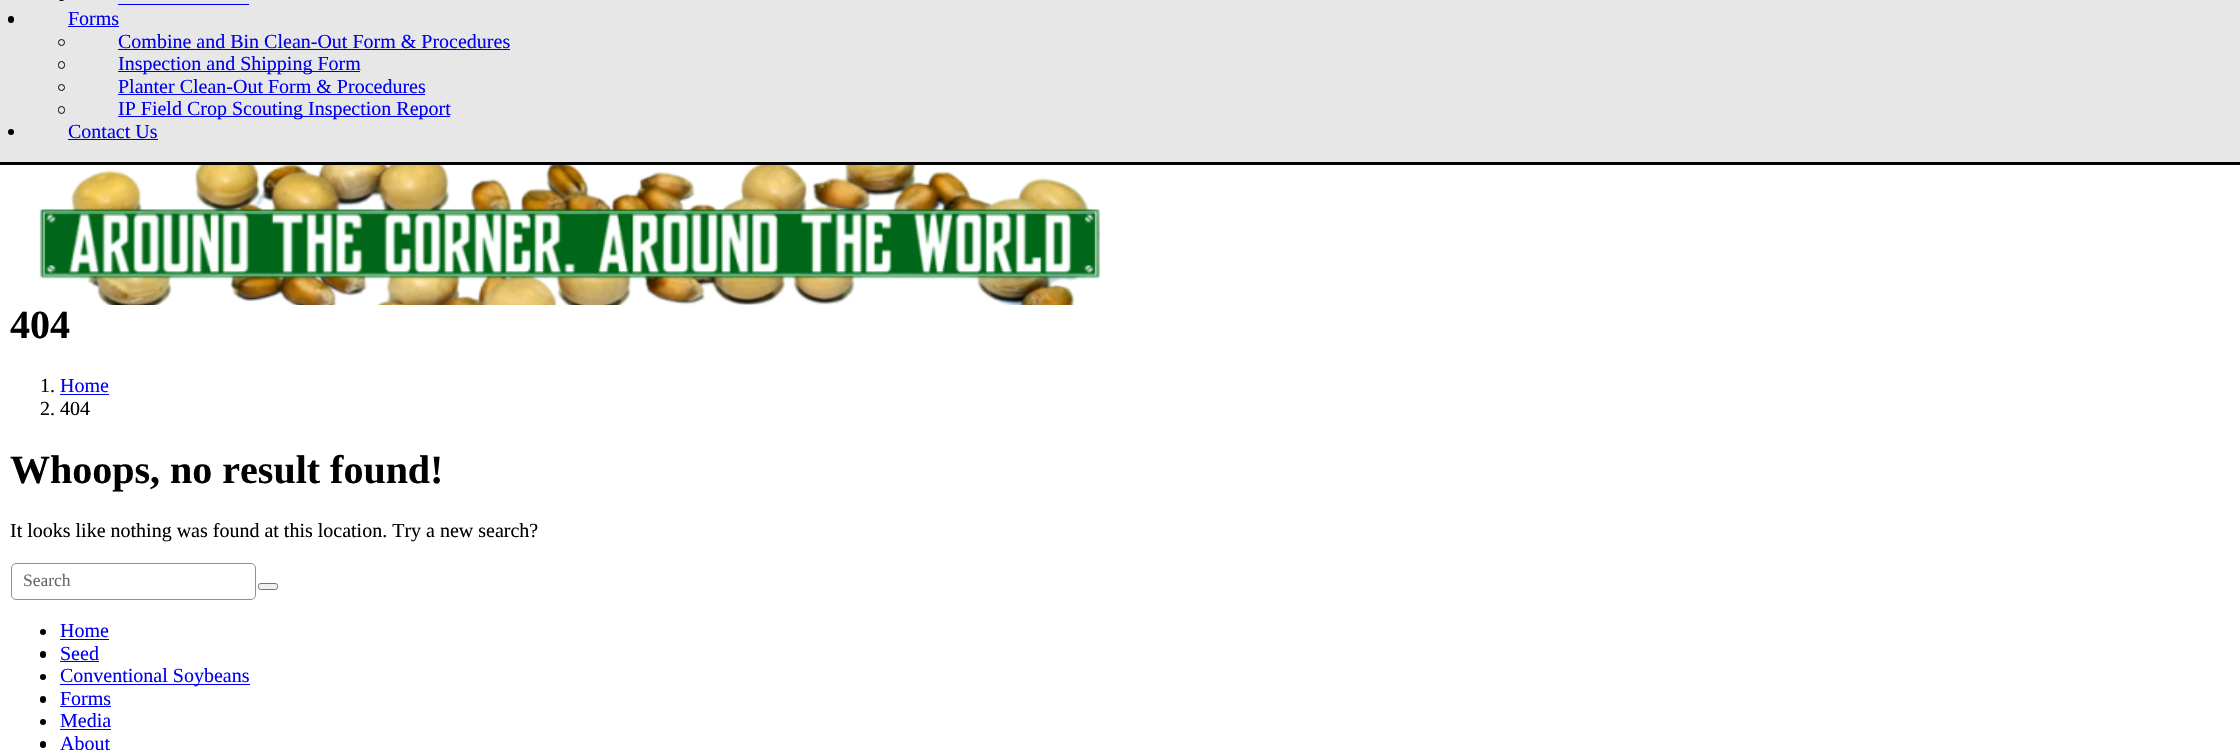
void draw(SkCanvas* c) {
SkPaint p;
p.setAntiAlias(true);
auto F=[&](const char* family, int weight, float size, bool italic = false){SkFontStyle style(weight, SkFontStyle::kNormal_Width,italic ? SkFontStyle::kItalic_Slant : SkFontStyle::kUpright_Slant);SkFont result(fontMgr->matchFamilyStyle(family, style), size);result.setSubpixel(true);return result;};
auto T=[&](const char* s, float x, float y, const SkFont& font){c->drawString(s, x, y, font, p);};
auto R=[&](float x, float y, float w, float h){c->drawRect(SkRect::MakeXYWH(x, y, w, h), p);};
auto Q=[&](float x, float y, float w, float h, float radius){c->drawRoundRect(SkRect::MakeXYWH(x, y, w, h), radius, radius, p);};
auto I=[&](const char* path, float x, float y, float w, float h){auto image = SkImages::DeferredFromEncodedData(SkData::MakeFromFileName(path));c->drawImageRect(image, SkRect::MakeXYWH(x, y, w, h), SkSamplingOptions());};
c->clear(0xffffffff);
p.setColor(0xffe7e7e7);
c->drawRect(SkRect::MakeXYWH(-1.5,-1.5,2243,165),p);
p.setStroke(true);
p.setStrokeWidth(3);
p.setColor(0xff000000);
c->drawRect(SkRect::MakeXYWH(-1.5,-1.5,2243,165),p);
p.setStrokeWidth(1);
c->drawRoundRect(SkRect::MakeXYWH(58.5,-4.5,6,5),3,3,p);
p.setStroke(false);
p.setColor(0xff0000ee);
R(118,4,131,1);
p.setColor(0xff000000);
Q(8,16,6,7,3);
auto f1 = F("Liberation Serif",400,20);
p.setColor(0xff0000ee);
T("Forms",68,25,f1);
R(68,26,51,1);
p.setStroke(true);
p.setColor(0xff000000);
c->drawCircle(61.5,42.5,3,p);
p.setStroke(false);
p.setColor(0xff0000ee);
T("Combine and Bin Clean-Out Form & Procedures",118,48,f1);
R(118,49,392,1);
p.setStroke(true);
p.setColor(0xff000000);
c->drawRoundRect(SkRect::MakeXYWH(58.5,61.5,6,7),3,3,p);
p.setStroke(false);
p.setColor(0xff0000ee);
R(118,71,242,1);
T("Inspection and Shipping Form",118,70,f1);
p.setStroke(true);
p.setColor(0xff000000);
c->drawCircle(61.5,87.5,3,p);
p.setStroke(false);
p.setColor(0xff0000ee);
T("Planter Clean-Out Form & Procedures",118,93,f1);
R(118,94,307,1);
p.setStroke(true);
p.setColor(0xff000000);
c->drawRoundRect(SkRect::MakeXYWH(58.5,106.5,6,7),3,3,p);
p.setStroke(false);
p.setColor(0xff0000ee);
R(118,116,332,1);
T("IP Field Crop Scouting Inspection Report",118,115,f1);
p.setColor(0xff000000);
c->drawCircle(11,132,3,p);
p.setColor(0xff0000ee);
T("Contact Us",68,138,f1);
R(68,139,90,1);
I("1.png",39,165,1062,140);
auto f2 = F("Liberation Serif",700,40);
p.setColor(0xff000000);
T("404",10,338,f2);
T("1.",40,392,f1);
p.setColor(0xff0000ee);
T("Home",60,392,f1);
R(60,394,49,1);
p.setColor(0xff000000);
T("2. 404",40,415,f1);
T("Whoops, no result found!",10,483,f2);
T("It looks like nothing was found at this location. Try a new search?",10,537,f1);
p.setStroke(true);
p.setColor(0xff8c8f94);
c->drawRoundRect(SkRect::MakeXYWH(11.5,563.5,244,36),4.5,4.5,p);
auto f3 = F("Liberation Serif",400,17.5);
p.setStroke(false);
p.setColor(0xff646970);
T("Search",23,586,f3);
p.setColor(0xffefefef);
c->drawRoundRect(SkRect::MakeXYWH(258.5,583.5,19,6),2,2,p);
p.setStroke(true);
p.setColor(0xff767676);
c->drawRoundRect(SkRect::MakeXYWH(258.5,583.5,19,6),2,2,p);
p.setStroke(false);
p.setColor(0xff000000);
c->drawCircle(43,632,3,p);
p.setColor(0xff0000ee);
T("Home",60,637,f1);
R(60,639,49,1);
p.setColor(0xff000000);
Q(40,651,6,7,3);
p.setColor(0xff0000ee);
T("Seed",60,660,f1);
R(60,661,39,1);
p.setColor(0xff000000);
c->drawCircle(43,677,3,p);
p.setColor(0xff0000ee);
R(60,684,190,1);
T("Conventional Soybeans",60,682,f1);
p.setColor(0xff000000);
Q(40,696,6,7,3);
p.setColor(0xff0000ee);
T("Forms",60,705,f1);
R(60,706,51,1);
p.setColor(0xff000000);
c->drawCircle(43,722,3,p);
p.setColor(0xff0000ee);
T("Media",60,727,f1);
R(60,729,51,1);
p.setColor(0xff000000);
Q(40,741,6,7,3);
p.setColor(0xff0000ee);
T("About",60,750,f1);
}
